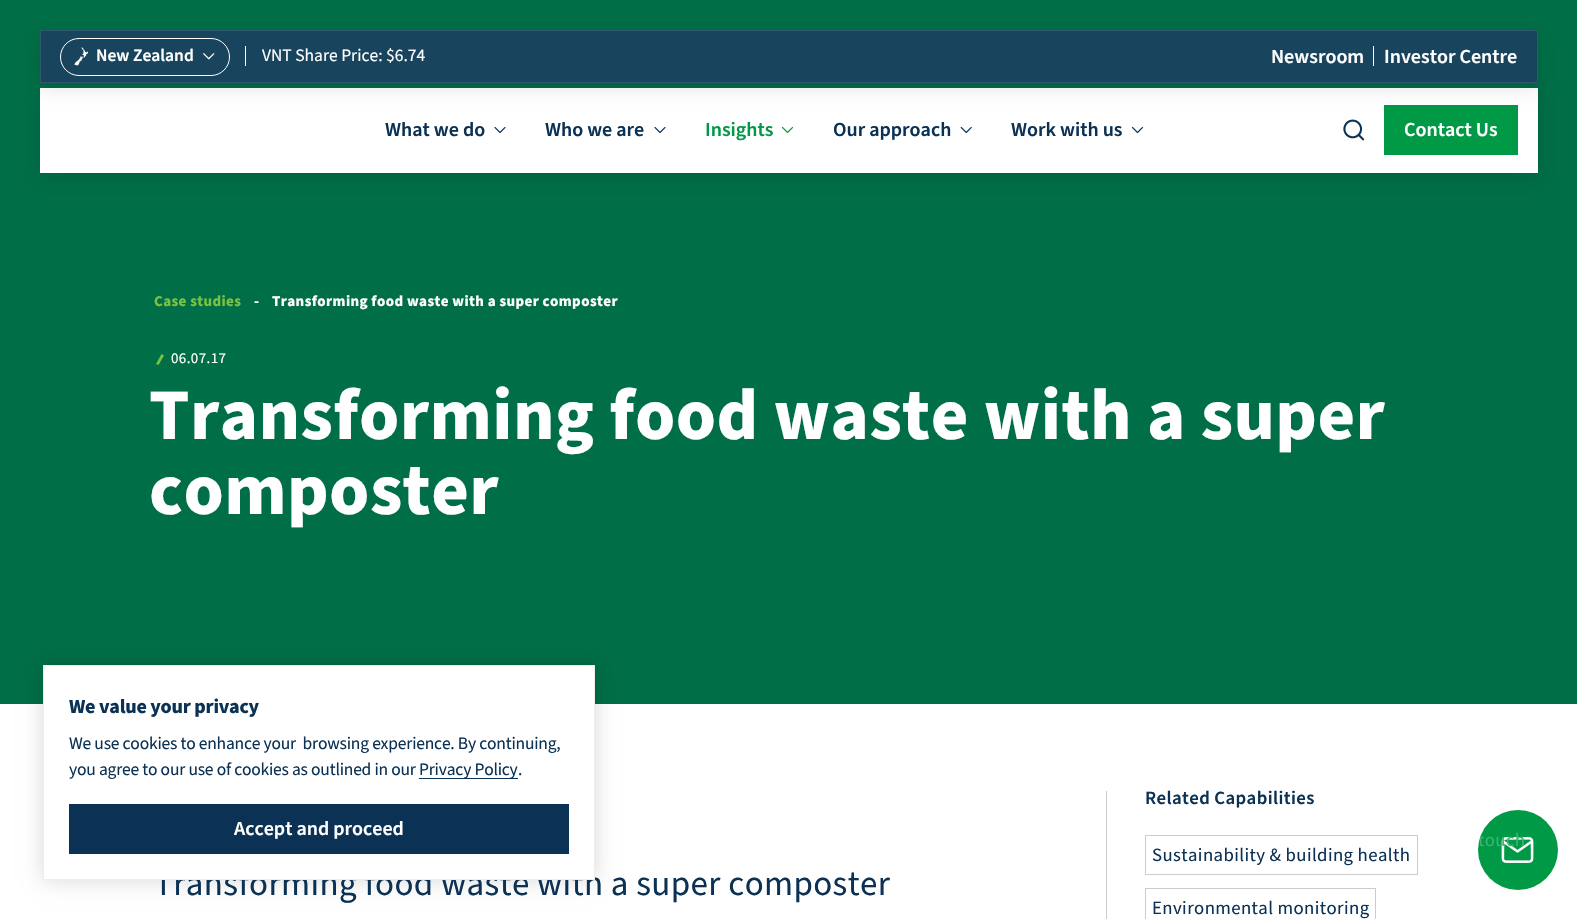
void draw(SkCanvas* c) {
SkPaint p;
p.setAntiAlias(true);
auto F=[&](const char* family, int weight, float size, bool italic = false){SkFontStyle style(weight, SkFontStyle::kNormal_Width,italic ? SkFontStyle::kItalic_Slant : SkFontStyle::kUpright_Slant);SkFont result(fontMgr->matchFamilyStyle(family, style), size);result.setSubpixel(true);return result;};
auto T=[&](const char* s, float x, float y, const SkFont& font){c->drawString(s, x, y, font, p);};
auto L=[&](const char* s, float x, float y, const SkFont& font, const SkPaint& ink, float letter, float word){std::vector<SkGlyphID> glyphs(font.countText(s, strlen(s), SkTextEncoding::kUTF8));std::vector<float> xs(glyphs.size());font.textToGlyphs(s, strlen(s), SkTextEncoding::kUTF8, glyphs);font.getXPos(glyphs, xs, x);float extra = 0;for (size_t i = 0; i < glyphs.size(); i++) {xs[i] += extra;extra += letter + word * (glyphs[i] == font.unicharToGlyph(' '));}c->drawTextBlob(SkTextBlob::MakeFromPosHGlyphs(glyphs, xs, y, font), 0, 0, ink);};
auto R=[&](float x, float y, float w, float h){c->drawRect(SkRect::MakeXYWH(x, y, w, h), p);};
auto I=[&](const char* path, float x, float y, float w, float h){auto image = SkImages::DeferredFromEncodedData(SkData::MakeFromFileName(path));c->drawImageRect(image, SkRect::MakeXYWH(x, y, w, h), SkSamplingOptions());};
auto P=[&](const char* data, bool evenOdd = false){SkPath result = *SkParsePath::FromSVGString(data);if (evenOdd) result.setFillType(SkPathFillType::kEvenOdd);return result;};
c->clear(0xffffffff);
p.setColor(0xff006e47);
R(0,0,1577,704);
p.setColor(0x1a000000);
p.setMaskFilter(SkMaskFilter::MakeBlur(kNormal_SkBlurStyle, 10));
c->drawRect(SkRect::MakeXYWH(40,93,1498,85),p);
p.setMaskFilter(nullptr);
p.setColor(0xffffffff);
R(40,88,1498,85);
p.setColor(0xff009946);
R(1384,105,134,50);
p.setColor(0x1a000000);
p.setMaskFilter(SkMaskFilter::MakeBlur(kNormal_SkBlurStyle, 10));
c->drawRect(SkRect::MakeXYWH(40,35,1498,53),p);
p.setMaskFilter(nullptr);
p.setColor(0xff19445d);
c->drawRect(SkRect::MakeXYWH(40.5,30.5,1497,52),p);
p.setStroke(true);
p.setStrokeWidth(1);
p.setColor(0xff30576d);
c->drawRect(SkRect::MakeXYWH(40.5,30.5,1497,52),p);
p.setColor(0xffffffff);
c->drawRoundRect(SkRect::MakeXYWH(60.5,38.5,169,37),18.5,18.5,p);
I("1.png",74,47,15,19);
auto f1 = F("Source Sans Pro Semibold",600,17.5);
p.setStroke(false);
T("New Zealand",96,61,f1);
I("2.png",203,53,12,7);
R(245,46,1,20);
auto f2 = F("Source Sans Pro",400,17.5);
T("VNT Share Price: $6.74",262,61,f2);
auto f3 = F("Source Sans Pro Semibold",600,20);
T("Newsroom",1271,63,f3);
R(1373,46,1,20);
T("Investor Centre",1384,63,f3);
p.setColor(0xff0b3254);
T("What we do",385,136,f3);
I("3.png",494,126,12,8);
T("Who we are",545,136,f3);
I("3.png",654,126,12,8);
p.setColor(0xff009946);
T("Insights",705,136,f3);
I("4.png",781,126,13,8);
p.setColor(0xff0b3254);
T("Our approach",833,136,f3);
I("5.png",960,126,12,8);
T("Work with us",1011,136,f3);
I("6.png",1131,126,13,8);
I("7.png",1343,119,22,22);
p.setColor(0xffffffff);
T("Contact Us",1404,136,f3);
auto f4 = F("Source Sans Pro",700,15);
p.setColor(0xff7bc143);
L("Case studies",154,306,f4,p,.4,0);
p.setColor(0xffffffff);
L("-",254,306,f4,p,.4,0);
L("Transforming food waste with a super composter",272,306,f4,p,.4,0);
p.setColor(0xff7bc143);
c->drawPath(P("M161.5 354l-5.5 10l2.5 1l5.5-9.5z"),p);
auto f5 = F("Source Sans Pro",400,15);
p.setColor(0xffffffff);
L("06.07.17",171,363,f5,p,.4,0);
auto f6 = F("Source Sans Pro",700,72.5);
L("Transforming food waste with a super",149,439,f6,p,.4,0);
L("composter",149,514,f6,p,.4,0);
p.setColor(0x26000000);
p.setMaskFilter(SkMaskFilter::MakeBlur(kNormal_SkBlurStyle, 10));
c->drawRect(SkRect::MakeXYWH(43,665,552,215),p);
p.setMaskFilter(nullptr);
auto f7 = F("Source Sans Pro",400,35);
p.setColor(0xff0b3254);
L("Transforming food waste with a super composter",154,895,f7,p,.4,0);
p.setColor(0xffffffff);
c->drawRect(SkRect::MakeXYWH(43.5,665.5,551,214),p);
p.setStroke(true);
p.setColor(0xffeeeeee);
c->drawRect(SkRect::MakeXYWH(43.5,665.5,551,214),p);
auto f8 = F("Source Sans Pro",700,20);
p.setStroke(false);
p.setColor(0xff0b3254);
L("We value your privacy",69,713,f8,p,-.25,0);
L("We use cookies to enhance your  browsing experience. By continuing,",69,749,f2,p,-.2,0);
L("you agree to our use of cookies as outlined in our",69,775,f2,p,-.2,0);
R(419,778,99,1);
L("Privacy Policy",419,775,f2,p,-.2,0);
L(".",518,775,f2,p,-.2,0);
R(69,804,500,50);
p.setColor(0xffffffff);
T("Accept and proceed",234,835,f3);
p.setColor(0xff009946);
c->drawCircle(1518,850,40,p);
I("8.png",1501,837,33,26);
c->save();
c->clipPath(P("M1518 810c22 0 40 18 40 40c0 22-18 40-40 40c-22 0-40-18-40-40c0-22 18-40 40-40z"),true);
auto f9 = F("Source Sans Pro",400,18.75);
p.setColor(0xff3fb273);
L("touch",1478,846,f9,p,.4,0);
c->restore();
p.setColor(0xffcccccc);
R(1106,791,1,128);
auto f10 = F("Source Sans Pro Semibold",600,18.75);
p.setColor(0xff0b3254);
L("Related Capabilities",1145,804,f10,p,.4,0);
p.setStroke(true);
p.setColor(0xffcccccc);
c->drawRect(SkRect::MakeXYWH(1145.5,835.5,272,39),p);
p.setStroke(false);
p.setColor(0xff0b3254);
L("Sustainability & building health",1152,861,f9,p,.4,0);
p.setStroke(true);
p.setColor(0xffcccccc);
c->drawRect(SkRect::MakeXYWH(1145.5,888.5,230,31),p);
p.setStroke(false);
p.setColor(0xff0b3254);
L("Environmental monitoring",1152,914,f9,p,.4,0);
}
